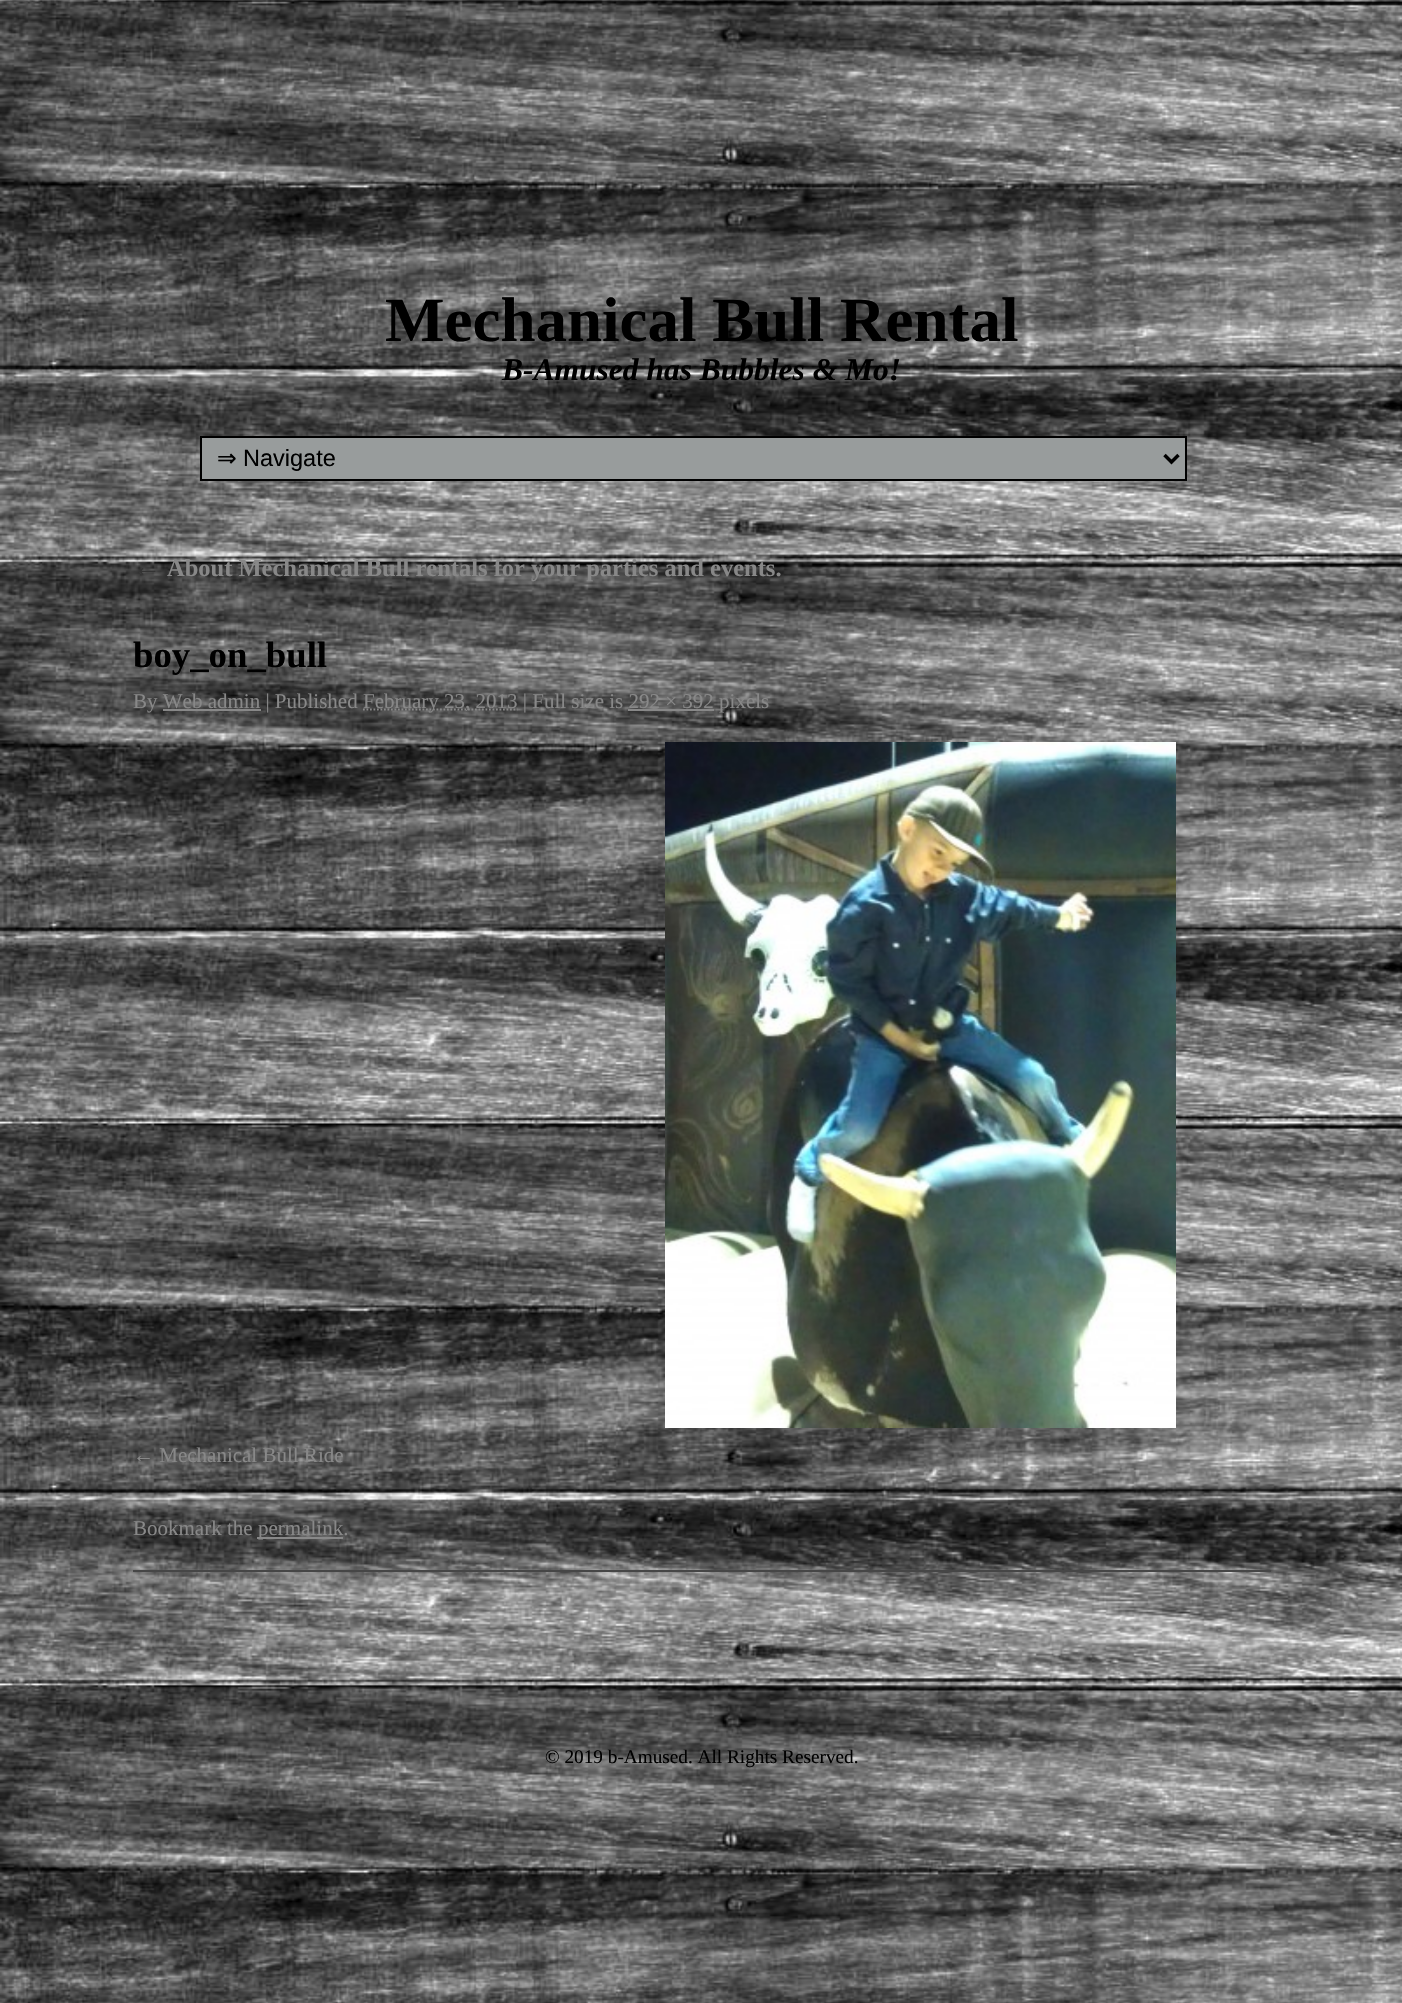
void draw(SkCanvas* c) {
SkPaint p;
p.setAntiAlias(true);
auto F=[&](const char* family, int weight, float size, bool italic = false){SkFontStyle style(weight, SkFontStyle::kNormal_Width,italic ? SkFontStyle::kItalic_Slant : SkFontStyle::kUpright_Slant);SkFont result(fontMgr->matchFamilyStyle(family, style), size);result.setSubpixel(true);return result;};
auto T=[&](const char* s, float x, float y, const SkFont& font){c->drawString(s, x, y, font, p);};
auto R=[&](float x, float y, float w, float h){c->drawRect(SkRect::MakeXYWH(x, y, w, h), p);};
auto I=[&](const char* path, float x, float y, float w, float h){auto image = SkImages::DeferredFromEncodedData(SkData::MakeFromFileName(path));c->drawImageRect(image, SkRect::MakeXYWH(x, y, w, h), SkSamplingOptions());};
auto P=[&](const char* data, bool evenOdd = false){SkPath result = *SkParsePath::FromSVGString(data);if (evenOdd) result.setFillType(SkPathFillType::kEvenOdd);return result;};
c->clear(0xffffffff);
I("1.png",0,0,1402,2003);
auto f1 = F("Liberation Serif",700,63);
p.setColor(0xff000000);
T("Mechanical Bull Rental",385,341,f1);
auto f2 = F("Liberation Serif",700,31.5,true);
T("B-Amused has Bubbles & Mo!",502,380,f2);
p.setColor(0xff989c9c);
c->drawRect(SkRect::MakeXYWH(201,437,985,43),p);
p.setStroke(true);
p.setStrokeWidth(2);
p.setColor(0xff000000);
c->drawRect(SkRect::MakeXYWH(201,437,985,43),p);
p.setStrokeWidth(3.5);
c->drawPath(P("M1164.5 455l7 7l7-7"),p);
auto f3 = F("DejaVu Sans",400,23.5);
p.setStroke(false);
T("⇒",217,466,f3);
auto f4 = F("Liberation Sans",400,23.5);
T("Navigate",243,466,f4);
auto f5 = F("Liberation Serif",400,28,true);
p.setColor(0xff333333);
T("←",133,576,f5);
auto f6 = F("Liberation Serif",700,24.5);
p.setColor(0xff888888);
T("About Mechanical Bull rentals for your parties and events.",167,576,f6);
p.setColor(0xff464646);
R(133,1570,1138,2);
auto f7 = F("Liberation Serif",700,36.75);
p.setColor(0xff000000);
T("boy_on_bull",133,667,f7);
auto f8 = F("Liberation Serif",400,21);
p.setColor(0xff888888);
T("By Web admin | Published",133,708,f8);
p.setStroke(true);
p.setStrokeWidth(1.8);
p.setPathEffect(SkDashPathEffect::Make({{1.75f,1.75f}}, 0));
c->drawPath(P("M363 709.5h154.5"),p);
p.setPathEffect(nullptr);
p.setStroke(false);
T("February 23, 2013 | Full size is 292 × 392 pixels",363,708,f8);
R(163,709,98,2);
R(628,709,86,2);
I("2.png",665,742,511,686);
T("← Mechanical Bull Ride",133,1462,f8);
T("Bookmark the",133,1535,f8);
R(257,1537,86,2);
T("permalink.",258,1535,f8);
auto f9 = F("Liberation Serif",400,19.25);
p.setColor(0xff000000);
T("© 2019 b-Amused. All Rights Reserved.",545,1763,f9);
}
